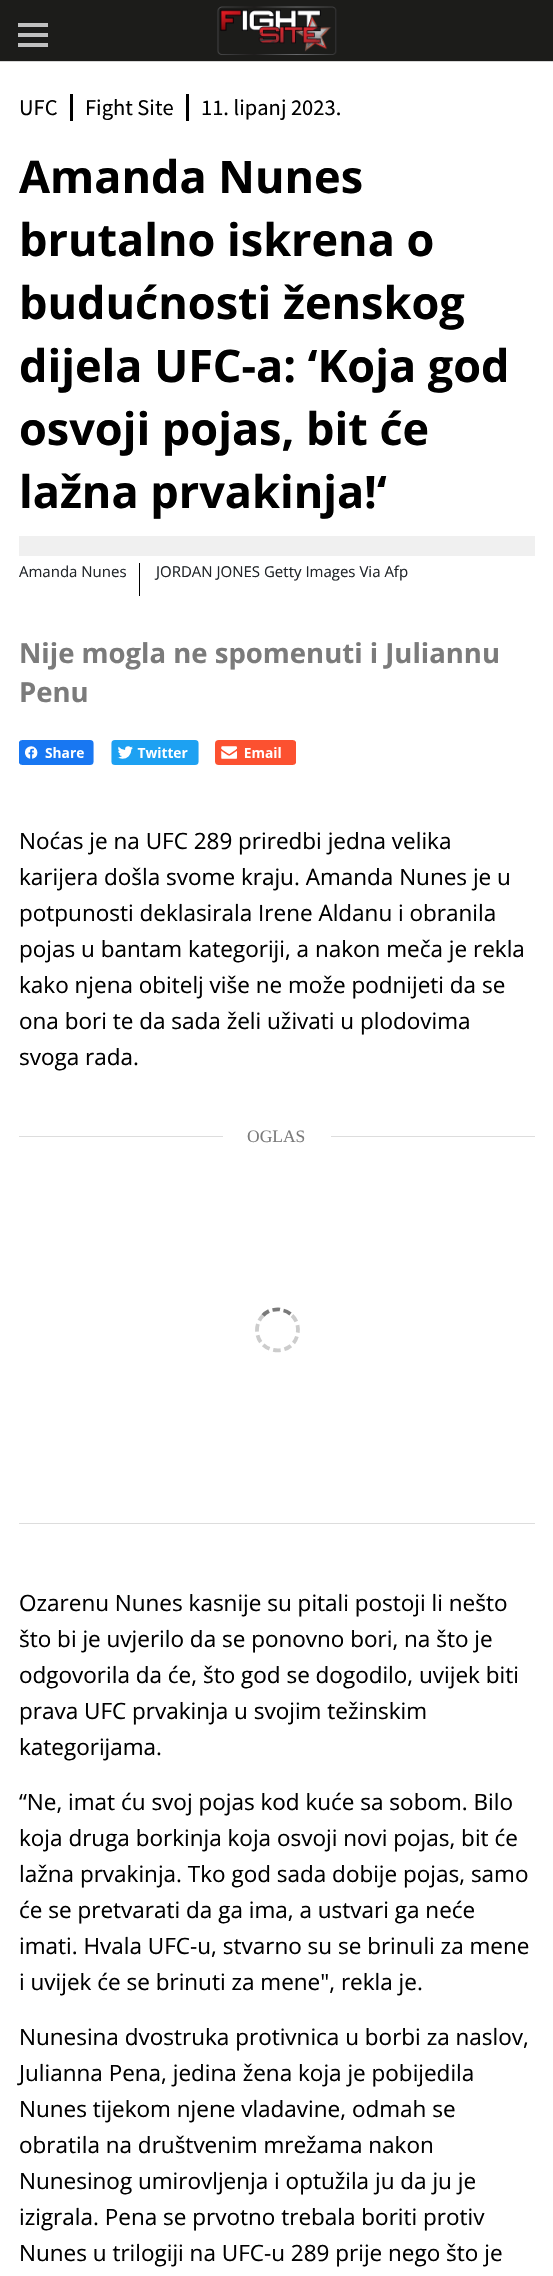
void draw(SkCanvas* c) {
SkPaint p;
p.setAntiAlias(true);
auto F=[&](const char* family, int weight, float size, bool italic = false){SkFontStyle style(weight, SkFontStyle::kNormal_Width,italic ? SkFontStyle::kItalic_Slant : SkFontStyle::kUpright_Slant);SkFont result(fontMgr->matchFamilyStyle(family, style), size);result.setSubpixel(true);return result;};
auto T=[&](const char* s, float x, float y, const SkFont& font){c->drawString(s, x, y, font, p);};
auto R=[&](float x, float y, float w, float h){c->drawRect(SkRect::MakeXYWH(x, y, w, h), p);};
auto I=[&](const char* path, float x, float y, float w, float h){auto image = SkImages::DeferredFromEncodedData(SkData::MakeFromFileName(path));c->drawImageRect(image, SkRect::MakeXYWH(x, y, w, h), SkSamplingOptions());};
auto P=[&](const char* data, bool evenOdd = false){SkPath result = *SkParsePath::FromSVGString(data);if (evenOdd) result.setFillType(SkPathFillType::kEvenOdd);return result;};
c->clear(0xffffffff);
p.setColor(0xffd6d6d6);
R(0,61,553,1);
p.setColor(0xff1c1c1a);
R(0,0,553,61);
I("1.png",217,6,120,49);
p.setColor(0xffc0c0c0);
R(18,23,30,4);
R(18,33,30,4);
R(18,43,30,4);
p.setColor(0xff000000);
R(70,94,3,27);
auto f1 = F("Source Sans Pro",400,22.5);
T("UFC",19,115,f1);
R(186,94,3,27);
T("Fight Site",85,115,f1);
T("11. lipanj 2023.",201,115,f1);
auto f2 = F("Open Sans",700,45);
T("Amanda Nunes",19,193,f2);
T("brutalno iskrena o",19,256,f2);
T("budućnosti ženskog",19,319,f2);
T("dijela UFC-a: ‘Koja god",19,382,f2);
T("osvoji pojas, bit će",19,445,f2);
T("lažna prvakinja!‘",19,508,f2);
p.setColor(0xfff0f0f0);
R(19,536,516,20);
p.setColor(0xff000000);
R(139,563,1,33);
auto f3 = F("Open Sans",400,15);
p.setColor(0xff212529);
T("Amanda Nunes",19,577,f3);
T("JORDAN JONES Getty Images Via Afp",156,577,f3);
auto f4 = F("Open Sans",700,27.5);
p.setColor(0xff7b7b7b);
T("Nije mogla ne spomenuti i Juliannu",19,663,f4);
T("Penu",19,702,f4);
I("2.png",19,740,75,25);
I("3.png",111,740,88,25);
I("4.png",215,740,81,25);
auto f5 = F("Open Sans",400,22.5);
p.setColor(0xff000000);
T("Noćas je na UFC 289 priredbi jedna velika",19,849,f5);
T("karijera došla svome kraju. Amanda Nunes je u",19,885,f5);
T("potpunosti deklasirala Irene Aldanu i obranila",19,921,f5);
T("pojas u bantam kategoriji, a nakon meča je rekla",19,957,f5);
T("kako njena obitelj više ne može podnijeti da se",19,993,f5);
T("ona bori te da sada želi uživati u plodovima",19,1029,f5);
T("svoga rada.",19,1065,f5);
p.setColor(0xffdddddd);
R(19,1136,516,1);
R(19,1523,516,1);
p.setColor(0xffffffff);
R(223,1136,108,1);
auto f6 = F("Liberation Serif",400,17.5);
p.setColor(0xff7b7b7b);
T("OGLAS",247,1142,f6);
p.setStroke(true);
p.setStrokeWidth(3.8);
p.setColor(0xff7a7a7a);
c->drawPath(P("M263 1315.5c1.5-2 4-3.5 6-4.5m3.5-1c2.5-.5 5-1 7.5-.5m3.5 1c2.5 .5 5 2 7 3.5"),p);
p.setColor(0xffcccccc);
p.setPathEffect(SkDashPathEffect::Make({{7.5f,3.75f}}, 0));
c->drawPath(P("M292 1315.5c5 4.5 7 12 5.5 18.5c-4.5 24-40.5 20.5-40.5-4c0-5.5 2-10.5 6-14.5"),p);
p.setPathEffect(nullptr);
p.setStroke(false);
p.setColor(0xff000000);
T("Ozarenu Nunes kasnije su pitali postoji li nešto",19,1611,f5);
T("što bi je uvjerilo da se ponovno bori, na što je",19,1647,f5);
T("odgovorila da će, što god se dogodilo, uvijek biti",19,1683,f5);
T("prava UFC prvakinja u svojim težinskim",19,1719,f5);
T("kategorijama.",19,1755,f5);
T("“Ne, imat ću svoj pojas kod kuće sa sobom. Bilo",19,1810,f5);
T("koja druga borkinja koja osvoji novi pojas, bit će",19,1846,f5);
T("lažna prvakinja. Tko god sada dobije pojas, samo",19,1882,f5);
T("će se pretvarati da ga ima, a ustvari ga neće",19,1918,f5);
T("imati. Hvala UFC-u, stvarno su se brinuli za mene",19,1954,f5);
T("i uvijek će se brinuti za mene\", rekla je.",19,1990,f5);
T("Nunesina dvostruka protivnica u borbi za naslov,",19,2045,f5);
T("Julianna Pena, jedina žena koja je pobijedila",19,2081,f5);
T("Nunes tijekom njene vladavine, odmah se",19,2117,f5);
T("obratila na društvenim mrežama nakon",19,2153,f5);
T("Nunesinog umirovljenja i optužila ju da ju je",19,2189,f5);
T("izigrala. Pena se prvotno trebala boriti protiv",19,2225,f5);
T("Nunes u trilogiji na UFC-u 289 prije nego što je",19,2261,f5);
}
